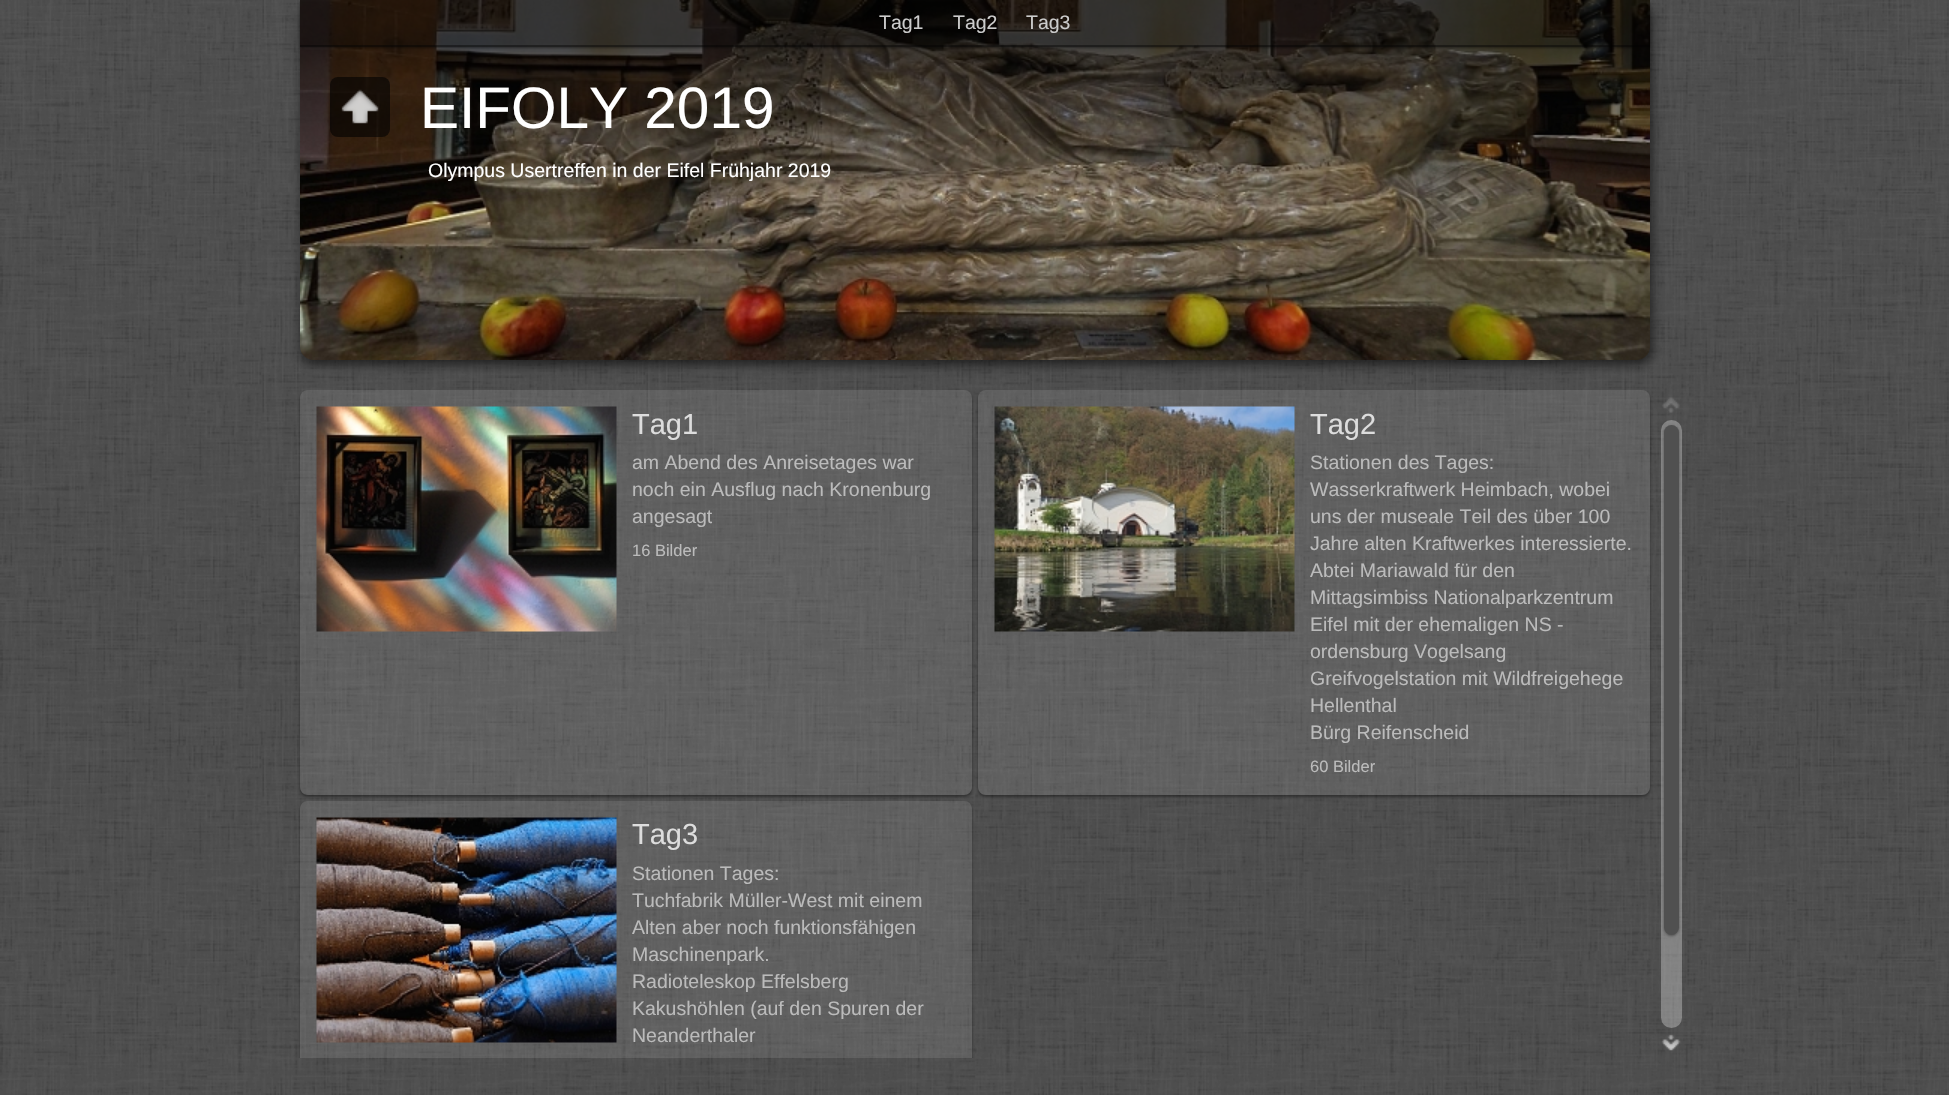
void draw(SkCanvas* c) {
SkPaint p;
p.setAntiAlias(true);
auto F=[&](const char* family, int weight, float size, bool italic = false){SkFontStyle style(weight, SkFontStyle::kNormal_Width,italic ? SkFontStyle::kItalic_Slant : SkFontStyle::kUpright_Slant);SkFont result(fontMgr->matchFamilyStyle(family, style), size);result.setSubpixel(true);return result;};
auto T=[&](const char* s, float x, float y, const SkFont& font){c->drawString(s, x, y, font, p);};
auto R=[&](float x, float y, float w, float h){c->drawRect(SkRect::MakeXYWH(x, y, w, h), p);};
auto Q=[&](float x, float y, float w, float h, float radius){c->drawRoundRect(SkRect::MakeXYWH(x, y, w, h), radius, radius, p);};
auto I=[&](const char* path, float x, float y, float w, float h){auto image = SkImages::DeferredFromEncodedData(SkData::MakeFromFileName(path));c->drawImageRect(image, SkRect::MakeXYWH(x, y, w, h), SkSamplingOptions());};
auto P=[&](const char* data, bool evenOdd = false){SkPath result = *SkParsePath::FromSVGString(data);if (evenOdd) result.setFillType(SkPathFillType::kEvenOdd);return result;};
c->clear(0xff505050);
I("1.png",0,0,1949,1095);
p.setColor(0x99000000);
p.setMaskFilter(SkMaskFilter::MakeBlur(kNormal_SkBlurStyle, 6));
c->drawRoundRect(SkRect::MakeXYWH(302,5,1350,360),14,14,p);
p.setMaskFilter(nullptr);
I("2.png",300,0,1350,360);
c->save();
c->clipPath(P("M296 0h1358v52h-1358zm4 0h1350v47h-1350z",true),true);
p.setColor(0x66000000);
p.setMaskFilter(SkMaskFilter::MakeBlur(kNormal_SkBlurStyle, 1));
c->drawRect(SkRect::MakeXYWH(300,2,1350,46),p);
p.setMaskFilter(nullptr);
c->restore();
p.setColor(0xb3000000);
R(300,0,1350,47);
p.setColor(0x66000000);
R(300,45,1350,2);
auto f1 = F("Liberation Sans",400,19.5);
p.setColor(0xffcccccc);
T("Tag1",879,29,f1);
T("Tag2",953,29,f1);
T("Tag3",1026,29,f1);
{
const SkColor colors[] = {0x99000000,0x00000000};
const float stops[] = {0,1};
const SkPoint ends[] = {{975,46}, {975,204}};
p.setShader(SkGradientShader::MakeLinear(ends, colors, stops, 2, SkTileMode::kClamp));
p.setAlpha(255);
}
R(300,47,1350,151);
p.setShader(nullptr);
p.setColor(0x99000000);
Q(330,77,60,60,8);
I("3.png",341,89,38,35);
auto f2 = F("Liberation Sans",400,58.5);
p.setColor(0xffffffff);
T("EIFOLY 2019",420,128,f2);
T("Olympus Usertreffen in der Eifel Frühjahr 2019",428,177,f1);
I("4.png",1662,397,18,16);
c->save();
c->clipPath(P("M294 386h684v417h-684zm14 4h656c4.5 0 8 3.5 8 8v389c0 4.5-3.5 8-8 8h-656c-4.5 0-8-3.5-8-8v-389c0-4.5 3.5-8 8-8z",true),true);
p.setColor(0x66000000);
p.setMaskFilter(SkMaskFilter::MakeBlur(kNormal_SkBlurStyle, 1.5));
c->drawRoundRect(SkRect::MakeXYWH(300,392,672,405),8,8,p);
p.setMaskFilter(nullptr);
c->restore();
p.setColor(0x1affffff);
Q(300,390,672,405,8);
I("5.png",316,406,301,226);
auto f3 = F("Liberation Sans",400,29);
p.setColor(0xffdddddd);
T("Tag1",632,434,f3);
p.setColor(0xffbbbbbb);
T("am Abend des Anreisetages war",632,469,f1);
T("noch ein Ausflug nach Kronenburg",632,496,f1);
T("angesagt",632,523,f1);
auto f4 = F("Liberation Sans",400,16.5);
T("16 Bilder",632,556,f4);
c->save();
c->clipPath(P("M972 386h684v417h-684zm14 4h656c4.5 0 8 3.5 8 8v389c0 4.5-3.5 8-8 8h-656c-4.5 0-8-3.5-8-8v-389c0-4.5 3.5-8 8-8z",true),true);
p.setColor(0x66000000);
p.setMaskFilter(SkMaskFilter::MakeBlur(kNormal_SkBlurStyle, 1.5));
c->drawRoundRect(SkRect::MakeXYWH(978,392,672,405),8,8,p);
p.setMaskFilter(nullptr);
c->restore();
p.setColor(0x1affffff);
Q(978,390,672,405,8);
I("6.png",994,406,301,226);
p.setColor(0xffdddddd);
T("Tag2",1310,434,f3);
p.setColor(0xffbbbbbb);
T("Stationen des Tages:",1310,469,f1);
T("Wasserkraftwerk Heimbach, wobei",1310,496,f1);
T("uns der museale Teil des über 100",1310,523,f1);
T("Jahre alten Kraftwerkes interessierte.",1310,550,f1);
T("Abtei Mariawald für den",1310,577,f1);
T("Mittagsimbiss Nationalparkzentrum",1310,604,f1);
T("Eifel mit der ehemaligen NS -",1310,631,f1);
T("ordensburg Vogelsang",1310,658,f1);
T("Greifvogelstation mit Wildfreigehege",1310,685,f1);
T("Hellenthal",1310,712,f1);
T("Bürg Reifenscheid",1310,739,f1);
T("60 Bilder",1310,772,f4);
c->save();
c->clipRect(SkRect::MakeXYWH(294,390,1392,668));
c->clipPath(P("M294 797h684v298h-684zm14 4h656c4.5 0 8 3.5 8 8v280c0 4.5-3.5 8-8 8h-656c-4.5 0-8-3.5-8-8v-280c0-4.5 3.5-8 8-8z",true),true);
p.setColor(0x66000000);
p.setMaskFilter(SkMaskFilter::MakeBlur(kNormal_SkBlurStyle, 1.5));
c->drawRoundRect(SkRect::MakeXYWH(300,803,672,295),8,8,p);
p.setMaskFilter(nullptr);
c->restore();
p.setColor(0x1affffff);
c->drawPath(P("M308 801h656c4.5 0 8 3.5 8 8v249h-672v-249c0-4.5 3.5-8 8-8z"),p);
I("7.png",316,817,301,226);
p.setColor(0xffdddddd);
T("Tag3",632,844,f3);
p.setColor(0xffbbbbbb);
T("Stationen Tages:",632,880,f1);
T("Tuchfabrik Müller-West mit einem",632,907,f1);
T("Alten aber noch funktionsfähigen",632,934,f1);
T("Maschinenpark.",632,961,f1);
T("Radioteleskop Effelsberg",632,988,f1);
T("Kakushöhlen (auf den Spuren der",632,1015,f1);
T("Neanderthaler",632,1042,f1);
p.setColor(0x4dffffff);
Q(1661,420,21,608,10.5);
p.setColor(0x66000000);
p.setMaskFilter(SkMaskFilter::MakeBlur(kNormal_SkBlurStyle, 1.5));
c->drawRoundRect(SkRect::MakeXYWH(1664,426,15,510),7.5,7.5,p);
p.setMaskFilter(nullptr);
p.setColor(0xff505050);
Q(1664,425,15,510,7.5);
I("8.png",1661,1034,20,17);
}
